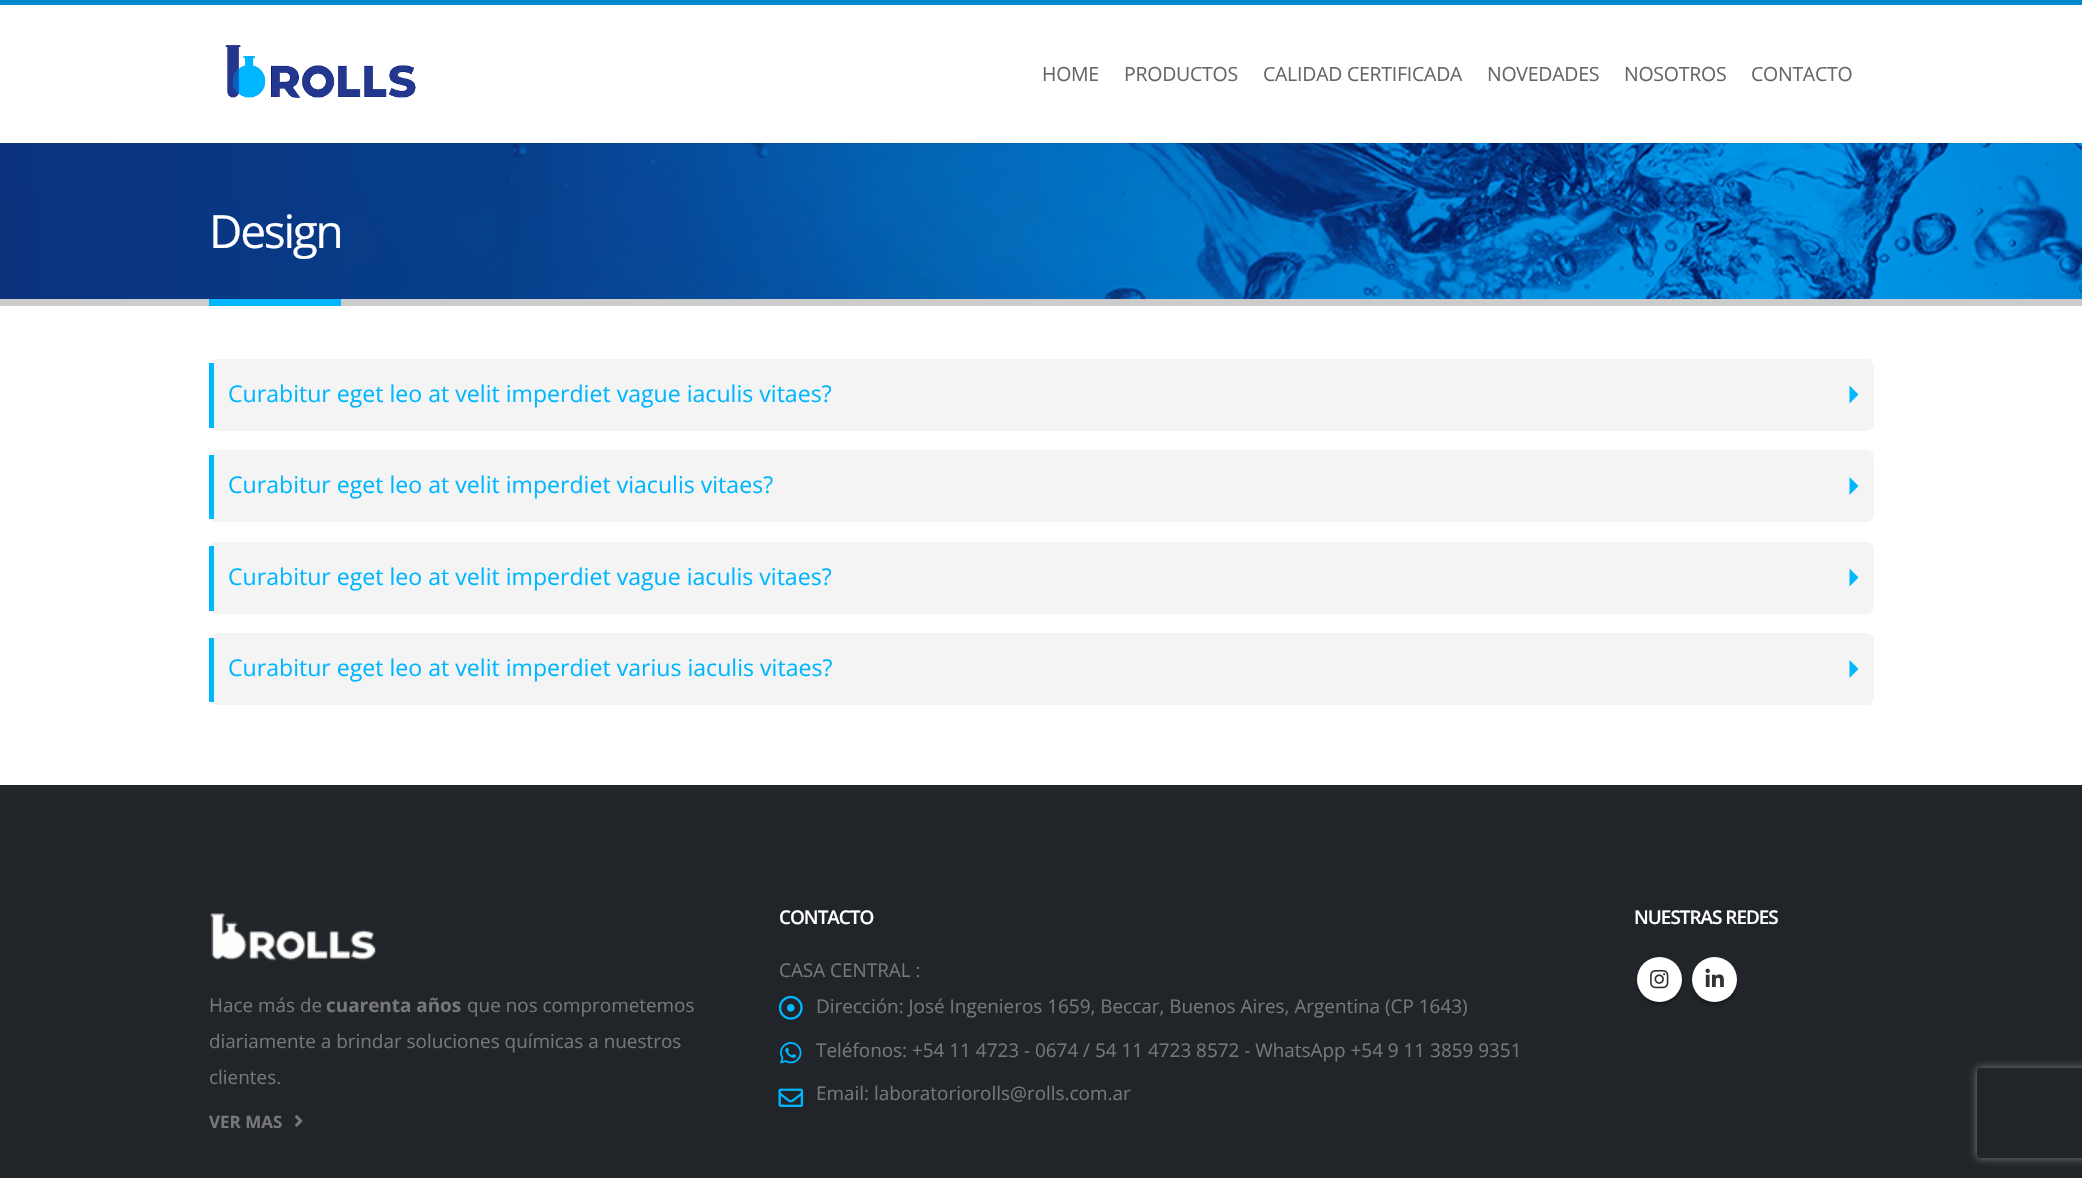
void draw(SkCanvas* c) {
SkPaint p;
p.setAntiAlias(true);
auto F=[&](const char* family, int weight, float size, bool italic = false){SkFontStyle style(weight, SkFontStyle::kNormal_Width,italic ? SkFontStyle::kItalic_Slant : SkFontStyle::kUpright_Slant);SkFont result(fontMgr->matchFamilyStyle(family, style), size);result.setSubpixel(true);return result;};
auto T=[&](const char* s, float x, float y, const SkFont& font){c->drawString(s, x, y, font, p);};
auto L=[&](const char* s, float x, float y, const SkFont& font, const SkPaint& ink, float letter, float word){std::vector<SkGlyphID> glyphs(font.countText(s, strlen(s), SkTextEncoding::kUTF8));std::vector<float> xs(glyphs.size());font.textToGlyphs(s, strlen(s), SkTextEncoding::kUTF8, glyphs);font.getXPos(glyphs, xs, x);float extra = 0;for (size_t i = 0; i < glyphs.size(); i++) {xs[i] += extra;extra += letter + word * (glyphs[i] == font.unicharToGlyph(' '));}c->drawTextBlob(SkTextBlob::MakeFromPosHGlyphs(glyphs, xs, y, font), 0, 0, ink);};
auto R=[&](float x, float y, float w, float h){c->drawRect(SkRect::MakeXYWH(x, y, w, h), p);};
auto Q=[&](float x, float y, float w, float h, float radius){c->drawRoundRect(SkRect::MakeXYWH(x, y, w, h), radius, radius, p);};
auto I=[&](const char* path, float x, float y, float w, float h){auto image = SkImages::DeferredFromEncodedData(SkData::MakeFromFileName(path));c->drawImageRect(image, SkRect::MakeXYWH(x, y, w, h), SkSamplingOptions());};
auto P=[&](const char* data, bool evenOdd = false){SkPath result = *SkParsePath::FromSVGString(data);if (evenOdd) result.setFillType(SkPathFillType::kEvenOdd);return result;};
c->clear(0xffffffff);
I("2.png",0,143,2082,156);
p.setColor(0x0f000000);
R(0,143,2082,1);
p.setColor(0xff0088cc);
R(0,0,2082,5);
I("1.png",225,45,191,53);
auto f1 = F("Open Sans",400,19.5);
p.setColor(0xff666666);
L("HOME",1042,81,f1,p,-.25,0);
L("PRODUCTOS",1124,81,f1,p,-.25,0);
L("CALIDAD CERTIFICADA",1263,81,f1,p,-.25,0);
L("NOVEDADES",1487,81,f1,p,-.25,0);
L("NOSOTROS",1624,81,f1,p,-.25,0);
L("CONTACTO",1751,81,f1,p,-.25,0);
p.setColor(0xffcccccc);
R(0,299,2082,7);
auto f2 = F("Open Sans",400,46);
p.setColor(0xffffffff);
L("Design",209,248,f2,p,-2.25,0);
p.setColor(0xff00b6ff);
R(209,299,132,7);
p.setColor(0xfff4f4f4);
Q(209,359,1665,72,8);
p.setColor(0xff00b6ff);
R(209,363,5,65);
auto f3 = F("Open Sans",400,23.1);
T("Curabitur eget leo at velit imperdiet vague iaculis vitaes?",228,402,f3);
c->drawPath(P("M1849.5 403.5v-18l9 9z"),p);
p.setColor(0xfff4f4f4);
Q(209,450,1665,72,8);
p.setColor(0xff00b6ff);
R(209,455,5,64);
T("Curabitur eget leo at velit imperdiet viaculis vitaes?",228,493,f3);
c->drawPath(P("M1849.5 495v-18l9 9z"),p);
p.setColor(0xfff4f4f4);
Q(209,542,1665,72,8);
p.setColor(0xff00b6ff);
R(209,546,5,65);
T("Curabitur eget leo at velit imperdiet vague iaculis vitaes?",228,585,f3);
c->drawPath(P("M1849.5 586.5v-18l9 9z"),p);
p.setColor(0xfff4f4f4);
Q(209,633,1665,72,8);
p.setColor(0xff00b6ff);
R(209,638,5,64);
T("Curabitur eget leo at velit imperdiet varius iaculis vitaes?",228,676,f3);
c->drawPath(P("M1849.5 678v-18l9 9z"),p);
p.setColor(0xff212529);
R(0,785,2082,393);
auto f4 = F("Open Sans",600,18.9);
p.setColor(0xffffffff);
L("CONTACTO",779,924,f4,p,-1,0);
auto f5 = F("Open Sans",400,18.9);
p.setColor(0xff777777);
T("CASA CENTRAL :",779,977,f5);
I("3.png",778,995,25,25);
T("Dirección: José Ingenieros 1659, Beccar, Buenos Aires, Argentina (CP 1643)",816,1013,f5);
I("4.png",780,1042,22,22);
T("Teléfonos: +54 11 4723 - 0674 / 54 11 4723 8572 - WhatsApp +54 9 11 3859 9351",816,1057,f5);
I("5.png",778,1088,26,19);
T("Email: laboratoriorolls@rolls.com.ar",816,1100,f5);
p.setColor(0xffffffff);
L("NUESTRAS REDES",1634,924,f4,p,-1,0);
p.setColor(0x4d000000);
p.setMaskFilter(SkMaskFilter::MakeBlur(kNormal_SkBlurStyle, 1.5));
c->drawRoundRect(SkRect::MakeXYWH(1637,960,45,45),22.5,22.5,p);
p.setMaskFilter(nullptr);
p.setColor(0xffffffff);
c->drawCircle(1659.5,979.5,22.5,p);
I("6.png",1650,969,19,20);
p.setColor(0x4d000000);
p.setMaskFilter(SkMaskFilter::MakeBlur(kNormal_SkBlurStyle, 1.5));
c->drawRoundRect(SkRect::MakeXYWH(1692,960,45,45),22.5,22.5,p);
p.setMaskFilter(nullptr);
p.setColor(0xffffffff);
c->drawCircle(1714.5,979.5,22.5,p);
I("7.png",1705,968,19,19);
I("8.png",209,913,167,48);
p.setColor(0xff777777);
T("Hace más de",209,1012,f5);
auto f6 = F("Open Sans",700,18.9);
T("cuarenta años",326,1012,f6);
T("que nos comprometemos",467,1012,f5);
T("diariamente a brindar soluciones químicas a nuestros",209,1048,f5);
T("clientes.",209,1084,f5);
auto f7 = F("Open Sans",700,17);
T("VER MAS",209,1128,f7);
I("9.png",295,1115,8,12);
c->save();
c->clipPath(P("M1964 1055h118v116h-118zm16 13h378c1.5 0 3 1.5 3 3v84c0 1.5-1.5 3-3 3h-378c-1.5 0-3-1.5-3-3v-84c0-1.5 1.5-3 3-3z",true),true);
p.setColor(0xff808080);
p.setMaskFilter(SkMaskFilter::MakeBlur(kNormal_SkBlurStyle, 4));
c->drawRoundRect(SkRect::MakeXYWH(1977,1068,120,90),3,3,p);
p.setMaskFilter(nullptr);
c->restore();
}
